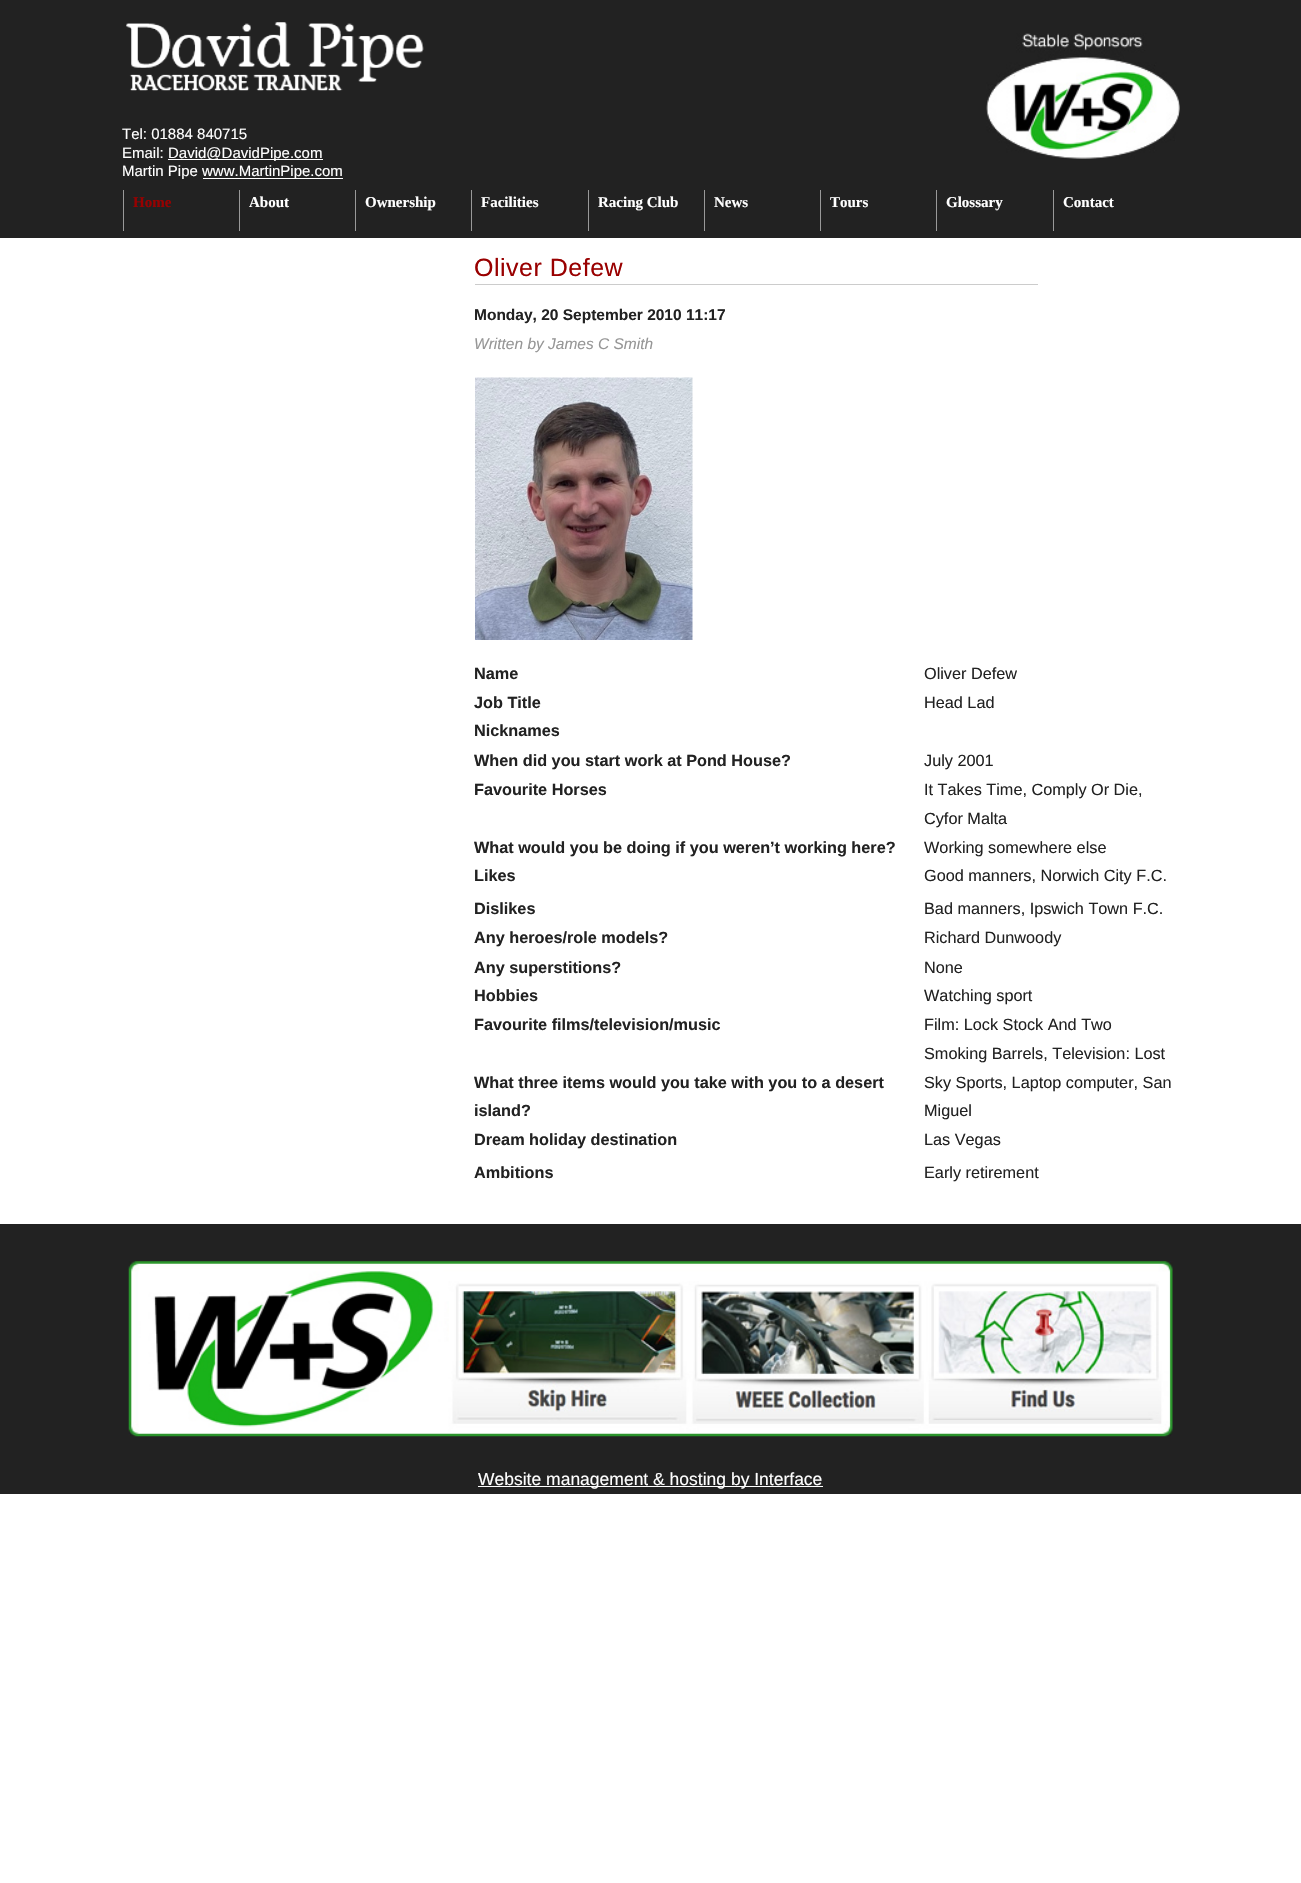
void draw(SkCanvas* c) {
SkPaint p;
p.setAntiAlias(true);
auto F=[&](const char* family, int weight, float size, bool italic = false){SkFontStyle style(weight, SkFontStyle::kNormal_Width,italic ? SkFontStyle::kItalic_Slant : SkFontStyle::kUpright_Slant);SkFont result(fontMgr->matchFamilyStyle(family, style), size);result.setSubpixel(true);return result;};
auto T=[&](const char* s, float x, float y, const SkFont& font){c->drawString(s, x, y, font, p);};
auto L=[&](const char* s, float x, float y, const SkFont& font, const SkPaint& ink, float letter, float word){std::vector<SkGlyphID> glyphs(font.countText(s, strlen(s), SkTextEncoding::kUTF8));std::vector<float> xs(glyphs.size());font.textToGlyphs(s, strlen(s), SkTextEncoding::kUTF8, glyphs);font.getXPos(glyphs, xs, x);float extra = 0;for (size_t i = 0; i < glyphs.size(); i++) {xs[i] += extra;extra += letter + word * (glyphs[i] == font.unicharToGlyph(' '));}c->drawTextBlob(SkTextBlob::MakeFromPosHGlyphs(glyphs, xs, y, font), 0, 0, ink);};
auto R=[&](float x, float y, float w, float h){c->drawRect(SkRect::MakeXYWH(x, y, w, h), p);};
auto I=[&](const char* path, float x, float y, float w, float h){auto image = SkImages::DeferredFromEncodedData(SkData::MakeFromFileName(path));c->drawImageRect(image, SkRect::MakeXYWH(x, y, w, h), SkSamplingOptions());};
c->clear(0xffffffff);
p.setColor(0xff222222);
R(0,0,1301,238);
I("1.png",126,22,298,69);
I("2.png",126,22,297,69);
auto f1 = F("Liberation Sans",400,15);
p.setColor(0xffffffff);
T("Tel: 01884 840715",122,139,f1);
T("Email:",122,158,f1);
R(168,159,155,1);
T("David@DavidPipe.com",168,158,f1);
T("Martin Pipe",122,176,f1);
R(203,178,140,1);
T("www.MartinPipe.com",202,176,f1);
I("3.png",986,33,194,126);
p.setColor(0xff999999);
R(123,190,1,41);
auto f2 = F("Liberation Serif",700,15);
p.setColor(0xff990000);
T("Home",133,207,f2);
p.setColor(0xff999999);
R(239,190,1,41);
p.setColor(0xffffffff);
T("About",249,207,f2);
p.setColor(0xff999999);
R(355,190,1,41);
p.setColor(0xffffffff);
T("Ownership",365,207,f2);
p.setColor(0xff999999);
R(471,190,1,41);
p.setColor(0xffffffff);
T("Facilities",481,207,f2);
p.setColor(0xff999999);
R(588,190,1,41);
p.setColor(0xffffffff);
T("Racing Club",598,207,f2);
p.setColor(0xff999999);
R(704,190,1,41);
p.setColor(0xffffffff);
T("News",714,207,f2);
p.setColor(0xff999999);
R(820,190,1,41);
p.setColor(0xffffffff);
T("Tours",830,207,f2);
p.setColor(0xff999999);
R(936,190,1,41);
p.setColor(0xffffffff);
T("Glossary",946,207,f2);
p.setColor(0xff999999);
R(1053,190,1,41);
p.setColor(0xffffffff);
T("Contact",1063,207,f2);
p.setColor(0xffcccccc);
R(475,284,563,1);
auto f3 = F("Liberation Sans",400,25);
p.setColor(0xff990000);
L("Oliver Defew",474,276,f3,p,.5,0);
auto f4 = F("Liberation Sans",700,15.5);
p.setColor(0xff222222);
T("Monday, 20 September 2010 11:17",474,320,f4);
auto f5 = F("Liberation Sans",400,15.5,true);
p.setColor(0xff969696);
T("Written by James C Smith",474,349,f5);
I("4.png",475,377,218,263);
auto f6 = F("Liberation Sans",700,16.25);
p.setColor(0xff222222);
T("Name",474,679,f6);
auto f7 = F("Liberation Sans",400,16.25);
T("Oliver Defew",924,679,f7);
T("Job Title",474,708,f6);
T("Head Lad",924,708,f7);
T("Nicknames",474,736,f6);
T("When did you start work at Pond House?",474,766,f6);
T("July 2001",924,766,f7);
T("Favourite Horses",474,795,f6);
T("It Takes Time, Comply Or Die,",924,795,f7);
T("Cyfor Malta",924,824,f7);
T("What would you be doing if you weren’t working here?",474,853,f6);
T("Working somewhere else",924,853,f7);
T("Likes",474,881,f6);
T("Good manners, Norwich City F.C.",924,881,f7);
T("Dislikes",474,914,f6);
T("Bad manners, Ipswich Town F.C.",924,914,f7);
T("Any heroes/role models?",474,943,f6);
T("Richard Dunwoody",924,943,f7);
T("Any superstitions?",474,973,f6);
T("None",924,973,f7);
T("Hobbies",474,1001,f6);
T("Watching sport",924,1001,f7);
T("Favourite films/television/music",474,1030,f6);
T("Film: Lock Stock And Two",924,1030,f7);
T("Smoking Barrels, Television: Lost",924,1059,f7);
T("What three items would you take with you to a desert",474,1088,f6);
T("island?",474,1116,f6);
T("Sky Sports, Laptop computer, San",924,1088,f7);
T("Miguel",924,1116,f7);
T("Dream holiday destination",474,1145,f6);
T("Las Vegas",924,1145,f7);
T("Ambitions",474,1178,f6);
T("Early retirement",924,1178,f7);
R(0,1224,1301,270);
I("5.png",128,1261,1045,176);
p.setColor(0xffffffff);
R(478,1486,345,1);
auto f8 = F("Liberation Sans",400,17.5);
T("Website management & hosting by Interface",478,1485,f8);
}
